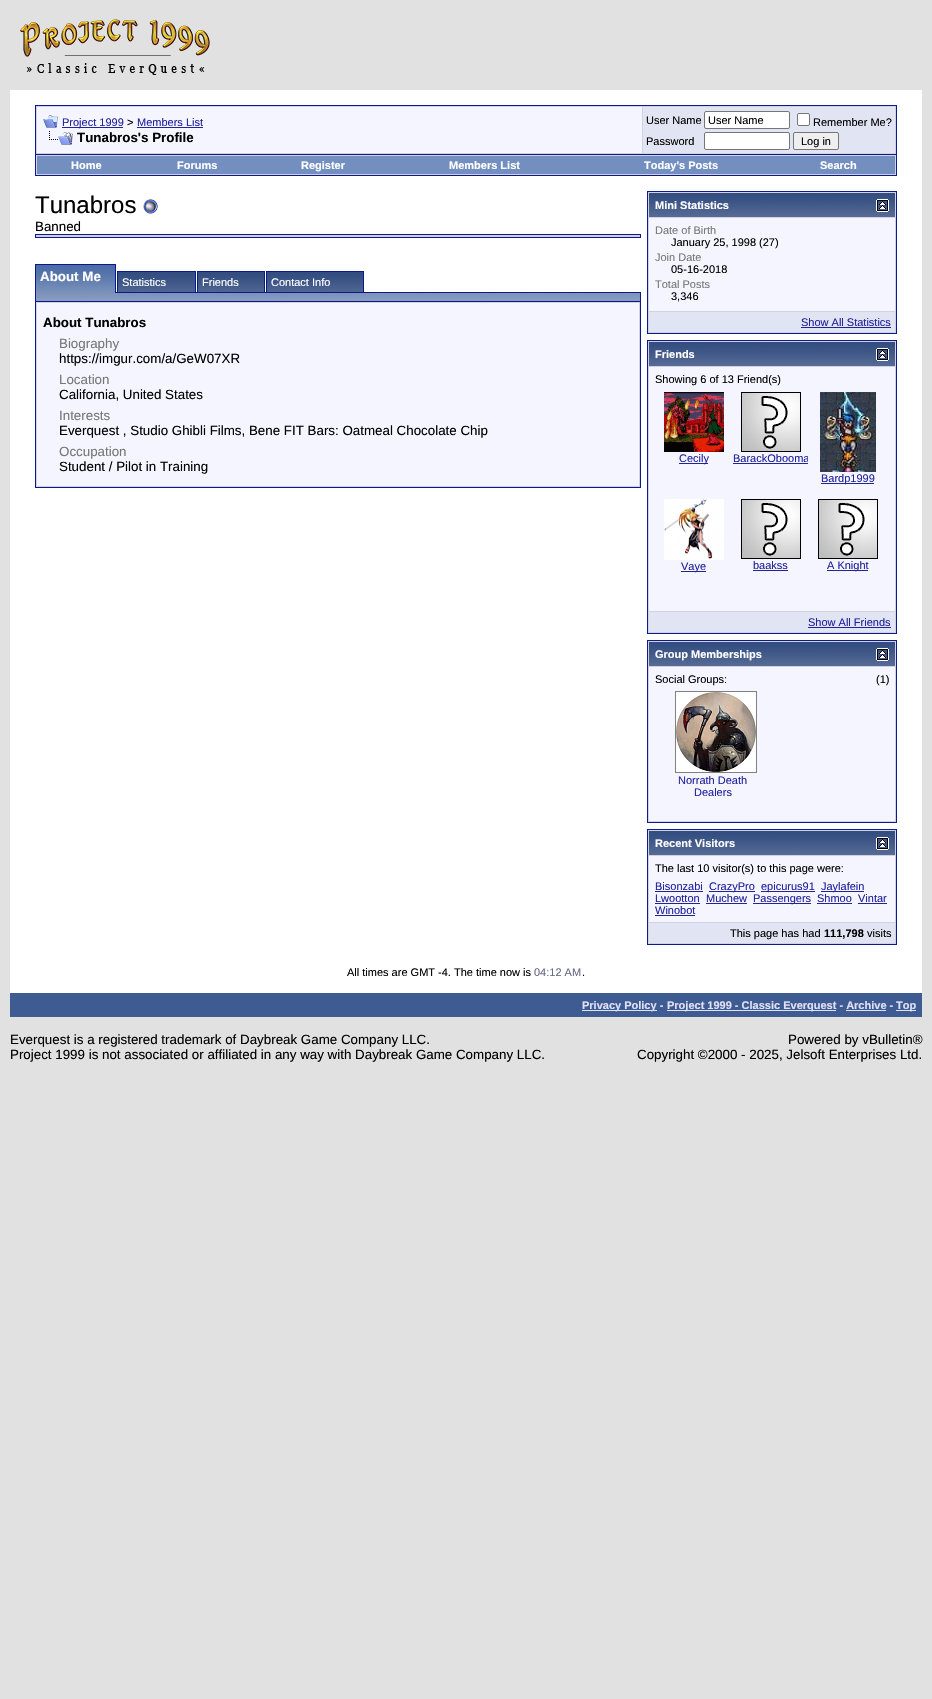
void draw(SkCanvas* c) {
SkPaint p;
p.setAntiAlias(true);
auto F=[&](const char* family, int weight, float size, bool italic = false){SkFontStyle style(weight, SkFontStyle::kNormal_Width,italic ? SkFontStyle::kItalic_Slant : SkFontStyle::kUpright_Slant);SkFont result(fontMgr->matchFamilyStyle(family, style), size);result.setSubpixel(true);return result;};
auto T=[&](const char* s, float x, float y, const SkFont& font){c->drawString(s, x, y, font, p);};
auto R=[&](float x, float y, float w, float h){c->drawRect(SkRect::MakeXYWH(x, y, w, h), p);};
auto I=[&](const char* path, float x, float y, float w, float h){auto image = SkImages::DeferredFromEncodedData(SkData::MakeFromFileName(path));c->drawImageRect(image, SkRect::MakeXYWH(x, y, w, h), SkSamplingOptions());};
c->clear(0xffe1e1e2);
I("1.png",20,19,190,56);
p.setColor(0xffffffff);
R(10,90,912,903);
p.setColor(0xffd1d1e1);
c->drawRect(SkRect::MakeXYWH(35.5,105.5,861,49),p);
p.setStroke(true);
p.setStrokeWidth(1);
p.setColor(0xff0b198c);
c->drawRect(SkRect::MakeXYWH(35.5,105.5,861,49),p);
p.setStroke(false);
p.setColor(0xfff5f5ff);
R(37,107,605,46);
I("2.png",43,115,15,13);
p.setColor(0xff22229c);
R(62,127,61,1);
auto f1 = F("Liberation Sans",400,11);
T("Project 1999",62,126,f1);
p.setColor(0xff000000);
T(">",127,126,f1);
p.setColor(0xff22229c);
T("Members List",137,126,f1);
R(137,127,66,1);
I("3.png",49,131,24,14);
auto f2 = F("Liberation Sans",700,13.35);
p.setColor(0xff000000);
T("Tunabros's Profile",77,142,f2);
p.setColor(0xffe1e4f2);
R(643,107,252,46);
p.setColor(0xff000000);
T("User Name",646,124,f1);
p.setColor(0xffffffff);
c->drawRoundRect(SkRect::MakeXYWH(704.5,111.5,85,17),1.5,1.5,p);
p.setStroke(true);
p.setColor(0xff767676);
c->drawRoundRect(SkRect::MakeXYWH(704.5,111.5,85,17),1.5,1.5,p);
p.setStroke(false);
p.setColor(0xff000000);
T("User Name",708,124,f1);
p.setColor(0xffffffff);
c->drawRoundRect(SkRect::MakeXYWH(797.5,113.5,12,12),1.5,1.5,p);
p.setStroke(true);
p.setColor(0xff767676);
c->drawRoundRect(SkRect::MakeXYWH(797.5,113.5,12,12),1.5,1.5,p);
p.setStroke(false);
p.setColor(0xff000000);
T("Remember Me?",813,126,f1);
T("Password",646,145,f1);
p.setColor(0xffffffff);
c->drawRoundRect(SkRect::MakeXYWH(704.5,132.5,85,17),1.5,1.5,p);
p.setStroke(true);
p.setColor(0xff767676);
c->drawRoundRect(SkRect::MakeXYWH(704.5,132.5,85,17),1.5,1.5,p);
p.setStroke(false);
p.setColor(0xffefefef);
c->drawRoundRect(SkRect::MakeXYWH(793.5,132.5,45,17),1.5,1.5,p);
p.setStroke(true);
p.setColor(0xff767676);
c->drawRoundRect(SkRect::MakeXYWH(793.5,132.5,45,17),1.5,1.5,p);
p.setStroke(false);
p.setColor(0xff000000);
T("Log in",801,145,f1);
p.setColor(0xffd1d1e1);
R(36,155,860,20);
p.setColor(0xff0b198c);
R(896,155,1,21);
R(35,175,862,1);
R(35,155,1,21);
p.setColor(0xff738fbf);
R(37,156,858,18);
auto f3 = F("Liberation Sans",700,11);
p.setColor(0xffffffff);
T("Home",71,169,f3);
T("Forums",177,169,f3);
T("Register",301,169,f3);
T("Members List",449,169,f3);
T("Today's Posts",644,169,f3);
T("Search",820,169,f3);
auto f4 = F("Liberation Sans",400,24);
p.setColor(0xff000000);
T("Tunabros",35,213,f4);
I("4.png",143,199,15,15);
auto f5 = F("Liberation Sans",400,13.35);
T("Banned",35,231,f5);
p.setColor(0xffd1d1e1);
c->drawRect(SkRect::MakeXYWH(35.5,234.5,605,3),p);
p.setStroke(true);
p.setColor(0xff0b198c);
c->drawRect(SkRect::MakeXYWH(35.5,234.5,605,3),p);
I("5.png",36,265,79,28);
p.setStroke(false);
R(35,264,81,1);
R(115,264,1,29);
R(35,292,1,9);
R(35,264,1,29);
p.setColor(0xffffffff);
T("About Me",40,281,f2);
I("6.png",118,272,77,20);
p.setColor(0xff0b198c);
R(116,292,525,1);
p.setStroke(true);
c->drawRect(SkRect::MakeXYWH(117.5,271.5,78,21),p);
p.setStroke(false);
p.setColor(0xffffffff);
T("Statistics",122,286,f1);
I("7.png",198,272,66,20);
p.setStroke(true);
p.setColor(0xff0b198c);
c->drawRect(SkRect::MakeXYWH(197.5,271.5,67,21),p);
p.setStroke(false);
p.setColor(0xffffffff);
T("Friends",202,286,f1);
I("8.png",267,272,96,20);
p.setStroke(true);
p.setColor(0xff0b198c);
c->drawRect(SkRect::MakeXYWH(266.5,271.5,97,21),p);
p.setStroke(false);
p.setColor(0xffffffff);
T("Contact Info",271,286,f1);
p.setColor(0xff869bbf);
R(36,298,604,3);
I("9.png",36,293,604,5);
p.setColor(0xff0b198c);
R(640,292,1,9);
p.setColor(0xffd1d1e1);
c->drawRect(SkRect::MakeXYWH(35.5,301.5,605,186),p);
p.setStroke(true);
p.setColor(0xff0b198c);
c->drawRect(SkRect::MakeXYWH(35.5,301.5,605,186),p);
p.setStroke(false);
p.setColor(0xfff5f5ff);
R(37,303,602,183);
p.setColor(0xff000000);
T("About Tunabros",43,327,f2);
p.setColor(0xff777777);
T("Biography",59,348,f5);
p.setColor(0xff000000);
T("https://imgur.com/a/GeW07XR",59,363,f5);
p.setColor(0xff777777);
T("Location",59,384,f5);
p.setColor(0xff000000);
T("California, United States",59,399,f5);
p.setColor(0xff777777);
T("Interests",59,420,f5);
p.setColor(0xff000000);
T("Everquest , Studio Ghibli Films, Bene FIT Bars: Oatmeal Chocolate Chip",59,435,f5);
p.setColor(0xff777777);
T("Occupation",59,456,f5);
p.setColor(0xff000000);
T("Student / Pilot in Training",59,471,f5);
p.setColor(0xffd1d1e1);
c->drawRect(SkRect::MakeXYWH(647.5,191.5,249,142),p);
p.setStroke(true);
p.setColor(0xff0b198c);
c->drawRect(SkRect::MakeXYWH(647.5,191.5,249,142),p);
I("10.png",649,193,246,24);
p.setStroke(false);
p.setColor(0xffffffff);
T("Mini Statistics",655,209,f3);
I("11.png",876,199,13,13);
p.setColor(0xfff5f5ff);
R(649,218,246,93);
p.setColor(0xff777777);
T("Date of Birth",655,234,f1);
p.setColor(0xff000000);
T("January 25, 1998 (27)",671,246,f1);
p.setColor(0xff777777);
T("Join Date",655,261,f1);
p.setColor(0xff000000);
T("05-16-2018",671,273,f1);
p.setColor(0xff777777);
T("Total Posts",655,288,f1);
p.setColor(0xff000000);
T("3,346",671,300,f1);
p.setColor(0xffe1e4f2);
R(649,312,246,20);
p.setColor(0xff22229c);
T("Show All Statistics",801,326,f1);
R(801,327,90,1);
p.setColor(0xffd1d1e1);
c->drawRect(SkRect::MakeXYWH(647.5,340.5,249,293),p);
p.setStroke(true);
p.setColor(0xff0b198c);
c->drawRect(SkRect::MakeXYWH(647.5,340.5,249,293),p);
I("10.png",649,342,246,24);
p.setStroke(false);
p.setColor(0xffffffff);
T("Friends",655,358,f3);
I("11.png",876,348,13,13);
p.setColor(0xfff5f5ff);
R(649,367,246,244);
p.setColor(0xff000000);
T("Showing 6 of 13 Friend(s)",655,383,f1);
I("12.png",664,392,60,60);
p.setColor(0xff22229c);
R(679,463,29,1);
T("Cecily",679,462,f1);
I("13.png",741,392,60,60);
c->save();
c->clipRect(SkRect::MakeXYWH(733,392,75,105));
T("BarackObooma",733,462,f1);
c->restore();
R(733,463,75,1);
I("14.png",820,392,56,80);
R(821,483,53,1);
T("Bardp1999",821,482,f1);
I("15.png",664,499,60,61);
R(681,571,25,1);
T("Vaye",681,570,f1);
I("13.png",741,499,60,60);
T("baakss",753,569,f1);
R(753,570,35,1);
I("13.png",818,499,60,60);
R(827,570,41,1);
T("A Knight",827,569,f1);
p.setColor(0xffe1e4f2);
R(649,612,246,20);
p.setColor(0xff22229c);
T("Show All Friends",808,626,f1);
R(808,627,83,1);
p.setColor(0xffd1d1e1);
c->drawRect(SkRect::MakeXYWH(647.5,640.5,249,182),p);
p.setStroke(true);
p.setColor(0xff0b198c);
c->drawRect(SkRect::MakeXYWH(647.5,640.5,249,182),p);
I("10.png",649,642,246,24);
p.setStroke(false);
p.setColor(0xffffffff);
T("Group Memberships",655,658,f3);
I("11.png",876,648,13,13);
p.setColor(0xfff5f5ff);
R(649,667,246,154);
p.setColor(0xff000000);
T("Social Groups:",655,683,f1);
T("(1)",876,683,f1);
p.setStroke(true);
p.setColor(0xff808080);
c->drawRect(SkRect::MakeXYWH(675.5,691.5,81,81),p);
I("16.png",676,692,80,80);
p.setStroke(false);
p.setColor(0xff22229c);
T("Norrath Death",678,784,f1);
T("Dealers",694,796,f1);
p.setColor(0xffd1d1e1);
c->drawRect(SkRect::MakeXYWH(647.5,829.5,249,115),p);
p.setStroke(true);
p.setColor(0xff0b198c);
c->drawRect(SkRect::MakeXYWH(647.5,829.5,249,115),p);
I("10.png",649,831,246,24);
p.setStroke(false);
p.setColor(0xffffffff);
T("Recent Visitors",655,847,f3);
I("11.png",876,837,13,13);
p.setColor(0xfff5f5ff);
R(649,856,246,66);
p.setColor(0xff000000);
T("The last 10 visitor(s) to this page were:",655,872,f1);
p.setColor(0xff22229c);
T("Bisonzabi",655,890,f1);
R(655,891,48,1);
R(709,891,46,1);
T("CrazyPro",709,890,f1);
R(761,891,54,1);
T("epicurus91",761,890,f1);
R(821,891,43,1);
T("Jaylafein",821,890,f1);
T("Lwootton",655,902,f1);
R(655,903,45,1);
T("Muchew",706,902,f1);
R(706,903,41,1);
R(753,903,58,1);
T("Passengers",753,902,f1);
T("Shmoo",817,902,f1);
R(817,903,35,1);
T("Vintar",858,902,f1);
R(858,903,29,1);
T("Winobot",655,914,f1);
R(655,915,40,1);
p.setColor(0xffe1e4f2);
R(649,923,246,20);
p.setColor(0xff000000);
T("This page has had",730,937,f1);
T("111,798",824,937,f3);
T("visits",867,937,f1);
T("All times are GMT -4. The time now is",347,976,f1);
p.setColor(0xff666686);
T("04:12 AM",534,976,f1);
p.setColor(0xff000000);
T(".",582,976,f1);
p.setColor(0xff3e5c92);
R(10,993,912,24);
p.setColor(0xffe0e0f6);
R(582,1010,75,1);
T("Privacy Policy -",582,1009,f3);
R(667,1010,169,1);
T("Project 1999 - Classic Everquest - Archive -",667,1009,f3);
R(846,1010,40,1);
R(896,1010,20,1);
T("Top",896,1009,f3);
p.setColor(0xff000000);
T("Everquest is a registered trademark of Daybreak Game Company LLC.",10,1044,f5);
T("Project 1999 is not associated or affiliated in any way with Daybreak Game Company LLC.",10,1059,f5);
T("Powered by vBulletin®",788,1044,f5);
T("Copyright ©2000 - 2025, Jelsoft Enterprises Ltd.",637,1059,f5);
}
